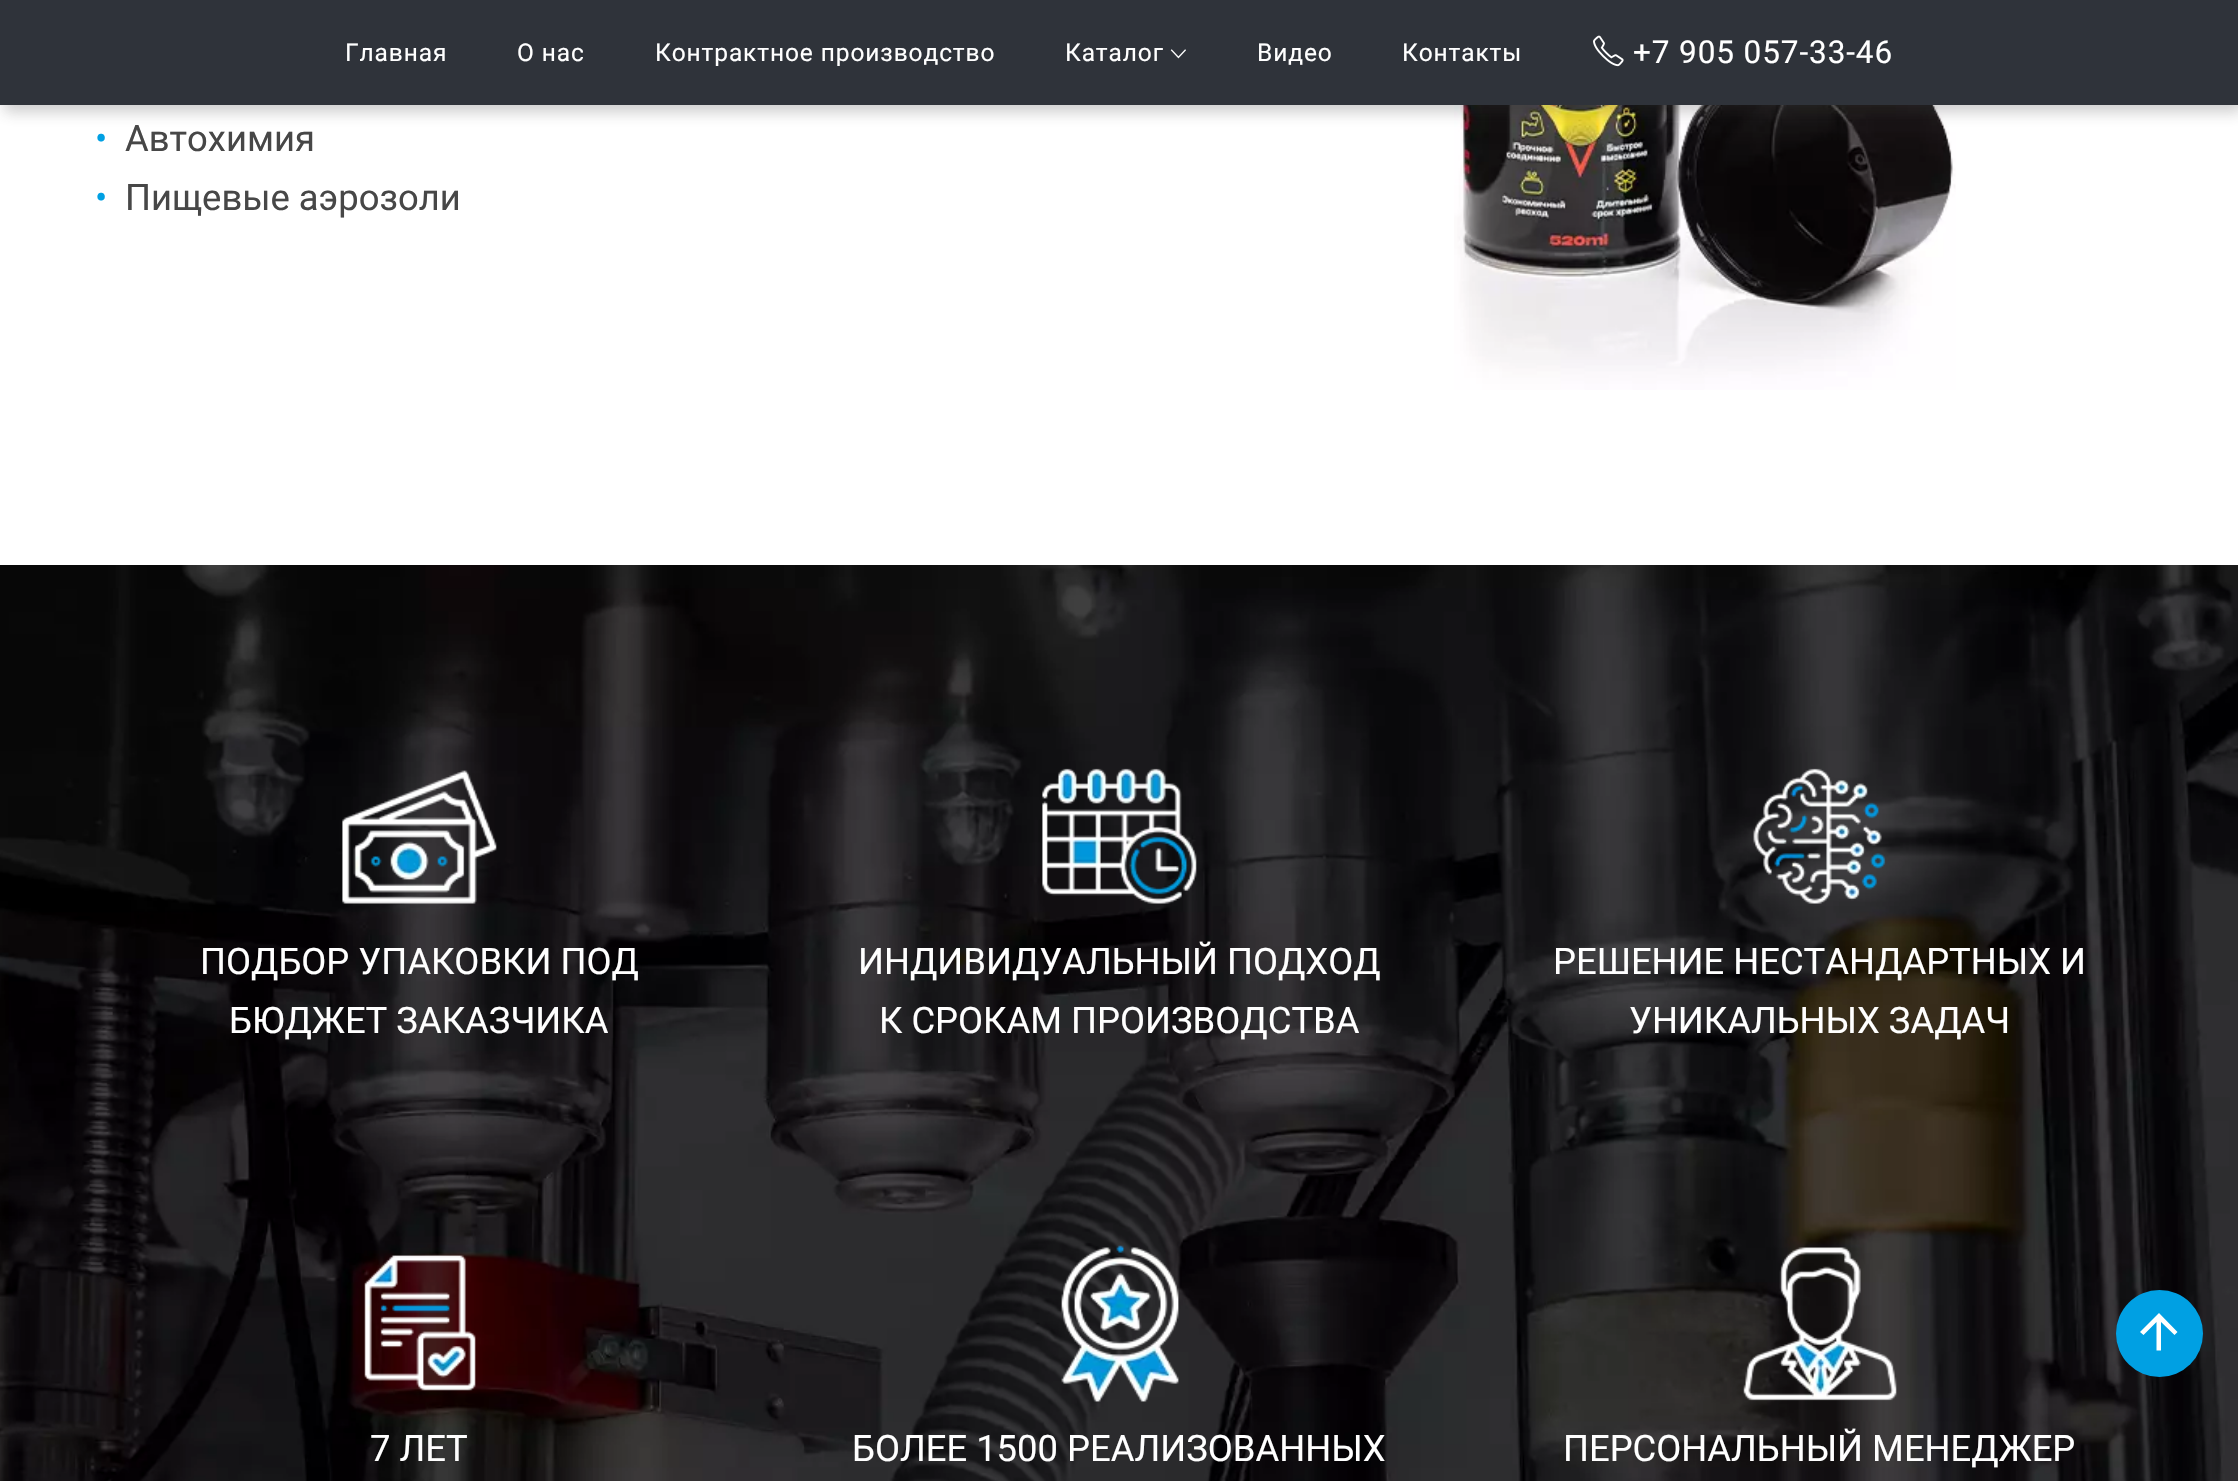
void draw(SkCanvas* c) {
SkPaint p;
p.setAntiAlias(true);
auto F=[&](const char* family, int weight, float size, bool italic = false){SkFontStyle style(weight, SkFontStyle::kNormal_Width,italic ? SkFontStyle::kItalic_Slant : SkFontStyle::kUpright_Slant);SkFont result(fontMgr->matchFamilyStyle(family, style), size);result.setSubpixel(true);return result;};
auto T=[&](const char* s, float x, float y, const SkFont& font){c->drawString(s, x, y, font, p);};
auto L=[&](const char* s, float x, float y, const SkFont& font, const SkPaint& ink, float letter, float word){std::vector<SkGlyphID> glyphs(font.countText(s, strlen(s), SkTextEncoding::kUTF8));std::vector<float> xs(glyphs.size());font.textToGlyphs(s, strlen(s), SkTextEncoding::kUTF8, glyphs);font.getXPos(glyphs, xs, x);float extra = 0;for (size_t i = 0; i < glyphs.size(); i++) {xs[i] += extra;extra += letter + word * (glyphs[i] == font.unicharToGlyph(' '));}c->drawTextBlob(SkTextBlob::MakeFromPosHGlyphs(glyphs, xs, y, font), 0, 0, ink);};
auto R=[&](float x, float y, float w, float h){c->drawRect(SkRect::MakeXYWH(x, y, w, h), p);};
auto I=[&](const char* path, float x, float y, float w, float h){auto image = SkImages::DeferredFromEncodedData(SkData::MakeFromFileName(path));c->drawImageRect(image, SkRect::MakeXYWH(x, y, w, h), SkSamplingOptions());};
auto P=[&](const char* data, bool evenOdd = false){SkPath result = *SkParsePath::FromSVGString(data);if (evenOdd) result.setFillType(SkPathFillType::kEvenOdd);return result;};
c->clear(0xffffffff);
I("3.png",1454,105,502,285);
p.setColor(0x40333333);
p.setMaskFilter(SkMaskFilter::MakeBlur(kNormal_SkBlurStyle, 7));
c->drawRect(SkRect::MakeXYWH(4,7,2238,105),p);
p.setMaskFilter(nullptr);
p.setColor(0xff2f333a);
R(0,0,2238,105);
auto f1 = F("Roboto",400,24.5);
p.setColor(0xffffffff);
L("Главная",345,61,f1,p,.9,0);
L("О нас",517,61,f1,p,.9,0);
L("Контрактное производство",655,61,f1,p,.9,0);
L("Каталог",1065,61,f1,p,.9,0);
I("1.png",1170,49,16,10);
L("Видео",1257,61,f1,p,.9,0);
L("Контакты",1402,61,f1,p,.9,0);
I("2.png",1593,35,31,32);
auto f2 = F("Roboto",400,31.5);
L("+7 905 057-33-46",1633,63,f2,p,.9,0);
auto f3 = F("Roboto",400,36.4);
p.setColor(0xff00a0e3);
T("•",95,151,f3);
p.setColor(0xff474747);
T("Автохимия",125,151,f3);
p.setColor(0xff00a0e3);
T("•",95,210,f3);
p.setColor(0xff474747);
T("Пищевые аэрозоли",125,210,f3);
I("4.png",0,565,2238,916);
I("5.png",342,770,155,134);
p.setColor(0xffffffff);
T("ПОДБОР УПАКОВКИ ПОД",200,974,f3);
T("БЮДЖЕТ ЗАКАЗЧИКА",229,1033,f3);
I("6.png",1042,768,155,136);
T("ИНДИВИДУАЛЬНЫЙ ПОДХОД",858,974,f3);
T("К СРОКАМ ПРОИЗВОДСТВА",879,1033,f3);
I("7.png",1753,768,133,136);
T("РЕШЕНИЕ НЕСТАНДАРТНЫХ И",1553,974,f3);
T("УНИКАЛЬНЫХ ЗАДАЧ",1629,1033,f3);
I("8.png",364,1255,112,136);
T("7 ЛЕТ",370,1461,f3);
I("9.png",1061,1245,118,157);
T("БОЛЕЕ 1500 РЕАЛИЗОВАННЫХ",852,1461,f3);
I("10.png",1743,1247,154,154);
T("ПЕРСОНАЛЬНЫЙ МЕНЕДЖЕР",1563,1461,f3);
p.setColor(0xff00a0e3);
c->drawCircle(2159.5,1333.5,43.5,p);
p.setColor(0xffffffff);
c->drawPath(P("M2161 1350.5h-4.5v-28.5l-13 13l-3.5-3l19-19l18.5 19l-3 3l-13.5-13z"),p);
}
